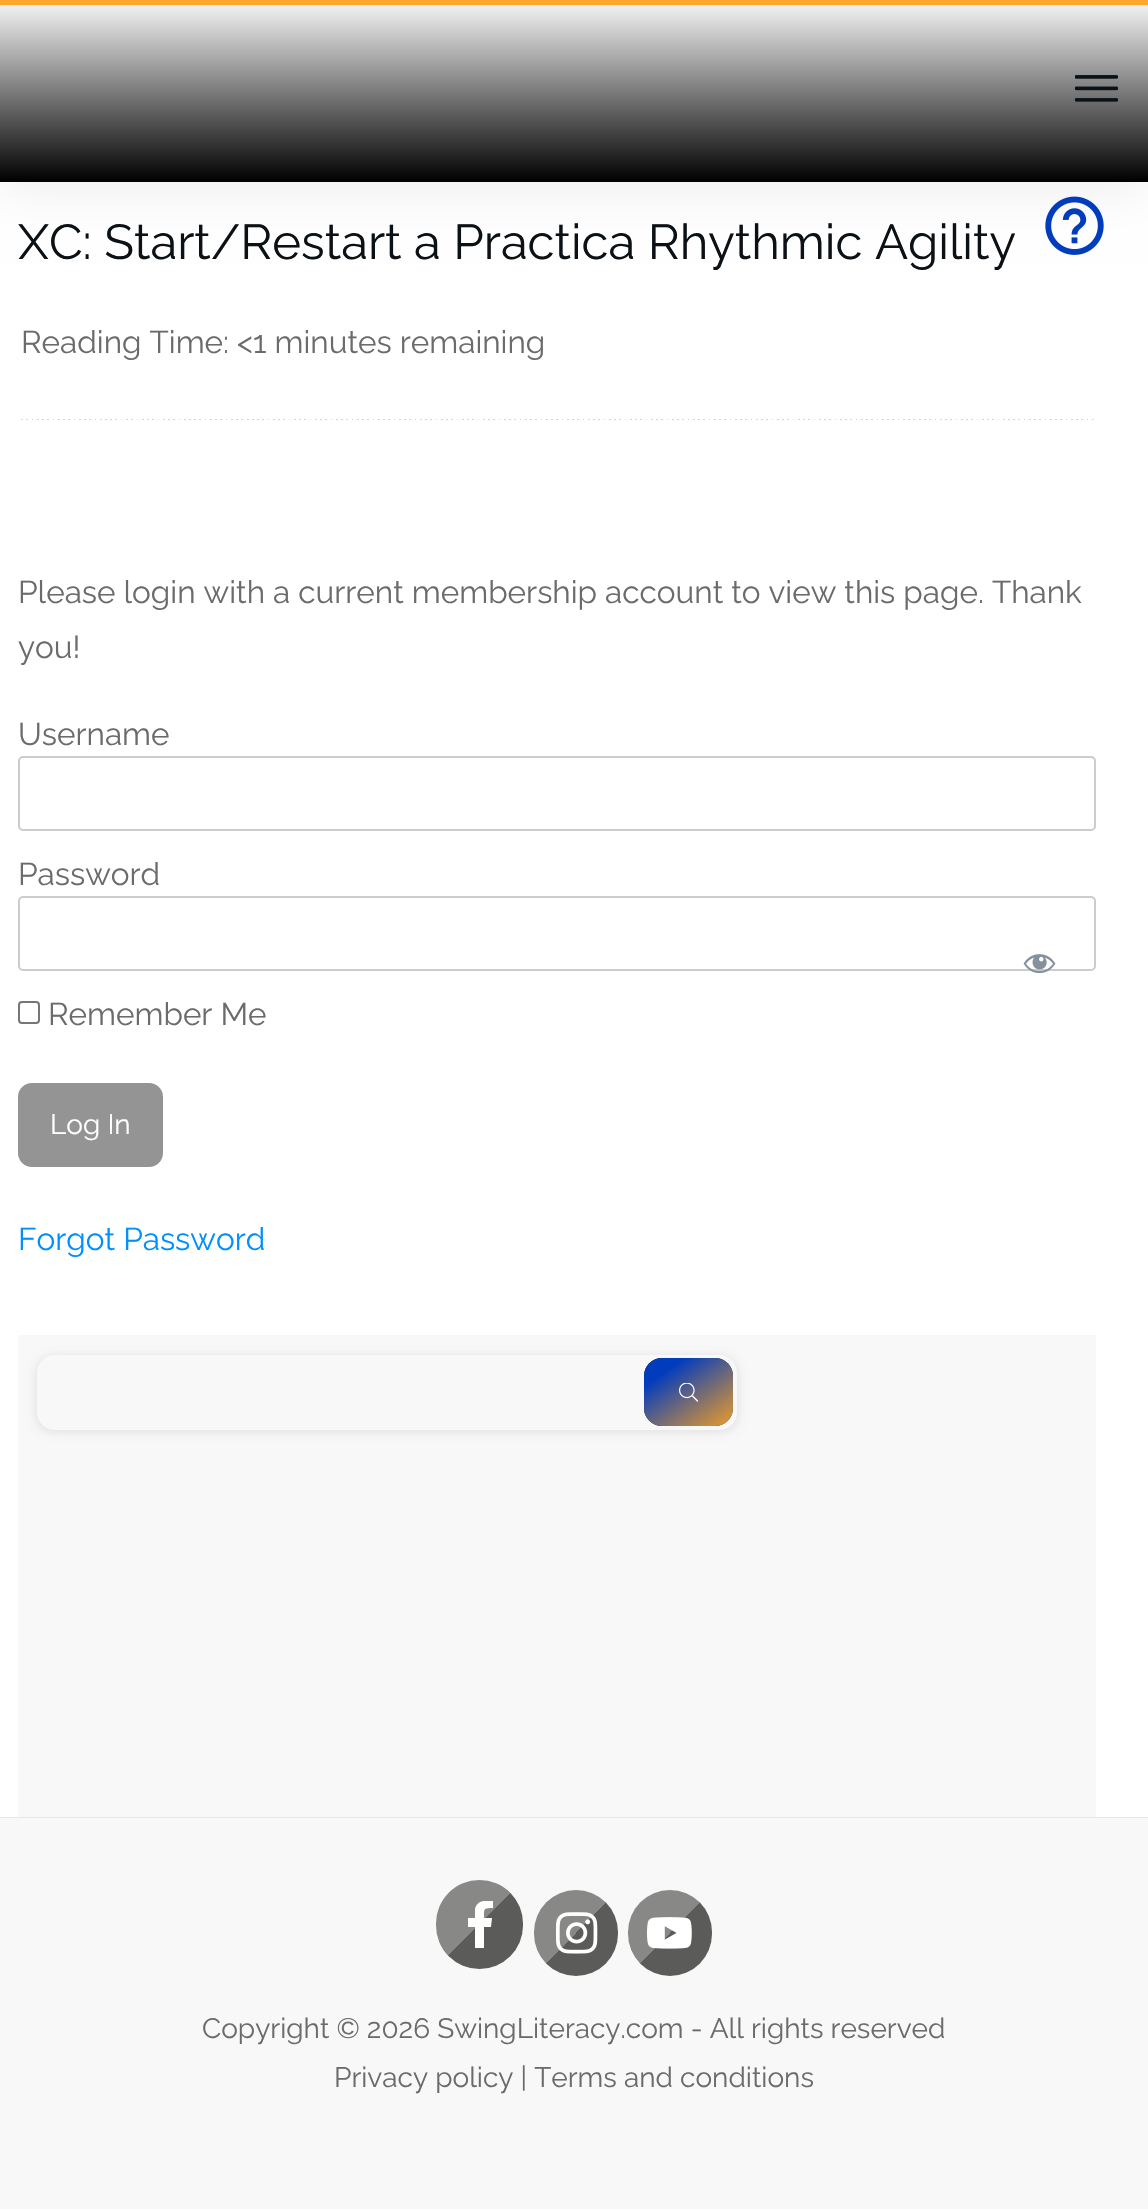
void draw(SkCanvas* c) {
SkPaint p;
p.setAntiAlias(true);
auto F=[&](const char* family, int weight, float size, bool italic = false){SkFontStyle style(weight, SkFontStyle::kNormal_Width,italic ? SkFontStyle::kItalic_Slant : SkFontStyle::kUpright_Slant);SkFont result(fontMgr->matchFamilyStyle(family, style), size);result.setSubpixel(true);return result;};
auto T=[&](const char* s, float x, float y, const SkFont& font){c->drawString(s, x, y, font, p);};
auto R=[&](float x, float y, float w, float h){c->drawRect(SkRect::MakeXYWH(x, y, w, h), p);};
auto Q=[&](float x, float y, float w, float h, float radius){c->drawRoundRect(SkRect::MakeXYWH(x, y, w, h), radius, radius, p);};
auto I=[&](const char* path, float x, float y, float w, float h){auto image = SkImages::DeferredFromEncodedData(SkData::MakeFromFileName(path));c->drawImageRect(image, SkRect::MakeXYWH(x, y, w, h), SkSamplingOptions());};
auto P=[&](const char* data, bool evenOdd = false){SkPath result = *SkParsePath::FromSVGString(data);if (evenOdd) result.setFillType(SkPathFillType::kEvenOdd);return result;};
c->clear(0xffffffff);
p.setColor(0x14000000);
p.setMaskFilter(SkMaskFilter::MakeBlur(kNormal_SkBlurStyle, 26));
c->drawRect(SkRect::MakeXYWH(0,-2,1148,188),p);
p.setMaskFilter(nullptr);
{
const SkColor colors[] = {0xffffffff,0xff000000};
const float stops[] = {0,1};
const SkPoint ends[] = {{574,-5.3}, {574,182}};
p.setShader(SkGradientShader::MakeLinear(ends, colors, stops, 2, SkTileMode::kClamp));
p.setAlpha(255);
}
R(0,5,1148,177);
I("1.png",1075,75,43,27);
p.setShader(nullptr);
p.setColor(0xffffa62d);
R(0,0,1148,5);
auto f1 = F("Raleway",400,49);
p.setColor(0xff0c1115);
T("XC: Start/Restart a Practica Rhythmic Agility",18,259,f1);
I("2.png",1045,196,59,59);
auto f2 = F("Raleway",400,31.5);
p.setColor(0xff6a6b6c);
T("Reading Time: <1 minutes remaining",21,353,f2);
I("3.png",21,419,1073,1);
T("Please login with a current membership account to view this page. Thank",18,603,f2);
T("you!",18,658,f2);
T("Username",18,745,f2);
p.setStroke(true);
p.setStrokeWidth(2);
p.setColor(0xffcccccc);
c->drawRoundRect(SkRect::MakeXYWH(19,757,1076,73),4,4,p);
p.setStroke(false);
p.setColor(0xff6a6b6c);
T("Password",18,885,f2);
p.setStroke(true);
p.setColor(0xffcccccc);
c->drawRoundRect(SkRect::MakeXYWH(19,897,1076,73),4,4,p);
I("4.png",1023,954,33,20);
p.setColor(0xff767676);
c->drawRoundRect(SkRect::MakeXYWH(19,1002,20,21),3,3,p);
p.setStroke(false);
p.setColor(0xff6a6b6c);
T("Remember Me",48,1025,f2);
p.setColor(0xff949494);
c->drawRoundRect(SkRect::MakeXYWH(19,1084,143,82),13,13,p);
p.setStroke(true);
c->drawRoundRect(SkRect::MakeXYWH(19,1084,143,82),13,13,p);
auto f3 = F("Raleway",400,28);
p.setStroke(false);
p.setColor(0xffffffff);
T("Log In",50,1134,f3);
p.setColor(0xff008fff);
T("Forgot Password",18,1250,f2);
p.setColor(0xfff8f8f8);
R(18,1335,1078,482);
c->save();
c->clipPath(P("M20 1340h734v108h-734zm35 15h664c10 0 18 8 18 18v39c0 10-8 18-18 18h-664c-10 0-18-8-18-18v-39c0-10 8-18 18-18z",true),true);
p.setColor(0x14000000);
p.setMaskFilter(SkMaskFilter::MakeBlur(kNormal_SkBlurStyle, 4.5));
c->drawRoundRect(SkRect::MakeXYWH(35,1355,704,78),19,19,p);
p.setMaskFilter(nullptr);
c->restore();
p.setColor(0xff012a01);
Q(644,1358,89,68,18);
{
const SkColor colors[] = {0xff013cbc,0xe8ffa62d};
const float stops[] = {.22,1};
const SkPoint ends[] = {{658,1348}, {719,1436}};
p.setShader(SkGradientShader::MakeLinear(ends, colors, stops, 2, SkTileMode::kClamp));
p.setAlpha(255);
}
Q(644,1358,89,68,18);
I("5.png",679,1383,19,19);
p.setShader(nullptr);
p.setColor(0xffe6e6e6);
R(0,1817,1148,1);
p.setColor(0xfff8f8f8);
R(0,1818,1148,391);
{
const SkColor colors[] = {0xff888887,0xff5b5b5a};
const float stops[] = {.5,.5};
const SkPoint ends[] = {{435,1880}, {524,1968}};
p.setShader(SkGradientShader::MakeLinear(ends, colors, stops, 2, SkTileMode::kClamp));
p.setAlpha(255);
}
Q(436,1880,87,89,43.5);
c->save();
c->clipRect(SkRect::MakeXYWH(457,1901,47,47));
p.setShader(nullptr);
p.setColor(0xffffffff);
c->drawPath(P("M475 1948v-21h-7v-9h7v-9c2-9 11-9 18-8v7c-10 0-9 1-9 10h8l-1 9h-7v21"),p);
c->restore();
{
const SkColor colors[] = {0xff888887,0xff5b5b5a};
const float stops[] = {.5,.5};
const SkPoint ends[] = {{533,1891}, {619,1975}};
p.setShader(SkGradientShader::MakeLinear(ends, colors, stops, 2, SkTileMode::kClamp));
p.setAlpha(255);
}
Q(534,1890,84,86,42);
I("6.png",555,1912,43,42);
{
const SkColor colors[] = {0xff888887,0xff5b5b5a};
const float stops[] = {.5,.5};
const SkPoint ends[] = {{627,1891}, {713,1975}};
p.setShader(SkGradientShader::MakeLinear(ends, colors, stops, 2, SkTileMode::kClamp));
p.setAlpha(255);
}
Q(628,1890,84,86,42);
I("7.png",647,1917,45,32);
p.setShader(nullptr);
p.setColor(0xff6a6b6c);
T("Copyright © 2026 SwingLiteracy.com - All rights reserved",202,2038,f3);
T("Privacy policy | Terms and conditions",334,2087,f3);
}
